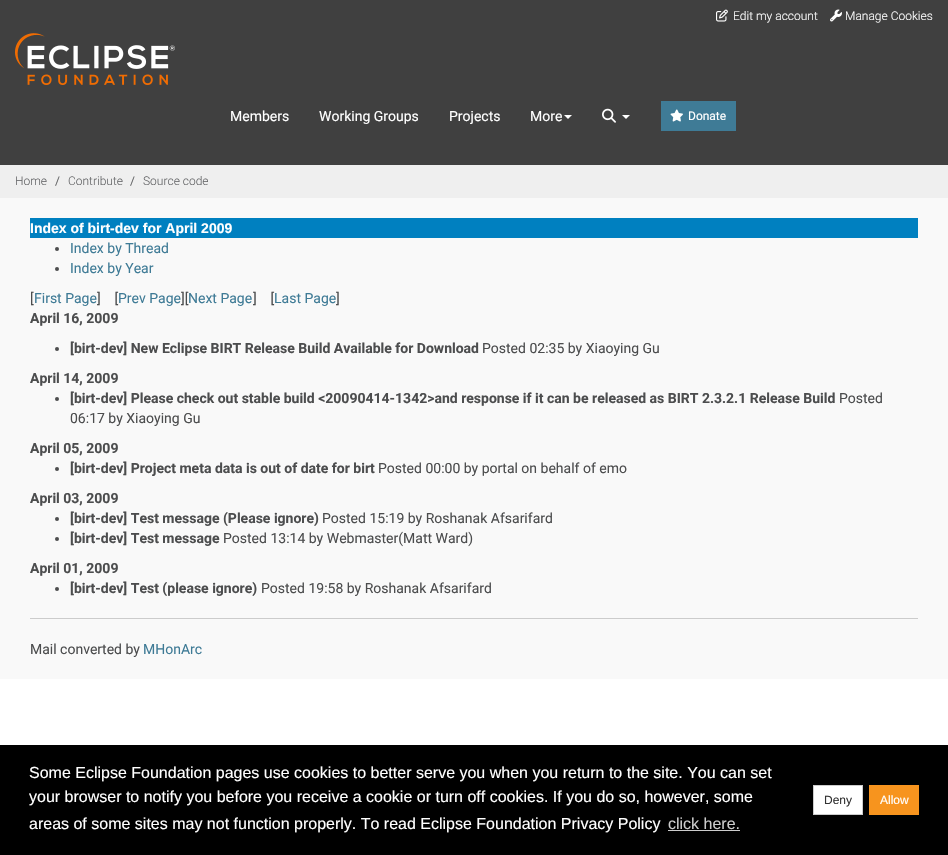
void draw(SkCanvas* c) {
SkPaint p;
p.setAntiAlias(true);
auto F=[&](const char* family, int weight, float size, bool italic = false){SkFontStyle style(weight, SkFontStyle::kNormal_Width,italic ? SkFontStyle::kItalic_Slant : SkFontStyle::kUpright_Slant);SkFont result(fontMgr->matchFamilyStyle(family, style), size);result.setSubpixel(true);return result;};
auto T=[&](const char* s, float x, float y, const SkFont& font){c->drawString(s, x, y, font, p);};
auto R=[&](float x, float y, float w, float h){c->drawRect(SkRect::MakeXYWH(x, y, w, h), p);};
auto I=[&](const char* path, float x, float y, float w, float h){auto image = SkImages::DeferredFromEncodedData(SkData::MakeFromFileName(path));c->drawImageRect(image, SkRect::MakeXYWH(x, y, w, h), SkSamplingOptions());};
auto P=[&](const char* data, bool evenOdd = false){SkPath result = *SkParsePath::FromSVGString(data);if (evenOdd) result.setFillType(SkPathFillType::kEvenOdd);return result;};
c->clear(0xfff9f9f9);
p.setColor(0xff404040);
R(0,0,948,165);
I("1.png",716,9,12,13);
auto f1 = F("Roboto",300,12);
p.setColor(0xffffffff);
T("Edit my account",733,20,f1);
I("2.png",830,9,12,13);
T("Manage Cookies",845,20,f1);
I("3.png",15,33,160,52);
auto f2 = F("Roboto",400,14);
T("Members",230,121,f2);
T("Working Groups",319,121,f2);
T("Projects",449,121,f2);
T("More",530,121,f2);
c->drawPath(P("M564 115h8l-4 4z"),p);
I("4.png",602,108,14,15);
c->drawPath(P("M622 115h8l-4 4z"),p);
p.setColor(0xff3f7b96);
R(661,101,75,30);
I("5.png",670,109,13,13);
auto f3 = F("Roboto",400,12);
p.setColor(0xffffffff);
T("Donate",688,120,f3);
p.setColor(0xffefefef);
R(0,165,948,33);
p.setColor(0xff656668);
T("Home",15,185,f1);
T("/",55,185,f3);
T("Contribute",68,185,f1);
T("/",130,185,f3);
T("Source code",143,185,f1);
p.setColor(0xff0080c0);
R(30,218,888,20);
auto f4 = F("Liberation Sans",700,14);
p.setColor(0xffffffff);
T("Index of birt-dev for April 2009",30,233,f4);
p.setColor(0xff4c4d4e);
c->drawCircle(57,249,2,p);
p.setColor(0xff3f7b96);
T("Index by Thread",70,253,f2);
p.setColor(0xff4c4d4e);
c->drawCircle(57,269,2,p);
p.setColor(0xff3f7b96);
T("Index by Year",70,273,f2);
p.setColor(0xff4c4d4e);
T("[",30,303,f2);
p.setColor(0xff3f7b96);
T("First Page",34,303,f2);
p.setColor(0xff4c4d4e);
T("]    [",97,303,f2);
p.setColor(0xff3f7b96);
T("Prev Page",118,303,f2);
p.setColor(0xff4c4d4e);
T("][",181,303,f2);
p.setColor(0xff3f7b96);
T("Next Page",188,303,f2);
p.setColor(0xff4c4d4e);
T("]    [",253,303,f2);
p.setColor(0xff3f7b96);
T("Last Page",274,303,f2);
p.setColor(0xff4c4d4e);
T("]",336,303,f2);
auto f5 = F("Roboto",700,14);
T("April 16, 2009",30,323,f5);
c->drawCircle(57,349,2,p);
T("[birt-dev] New Eclipse BIRT Release Build Available for Download",70,353,f5);
T("Posted 02:35 by Xiaoying Gu",482,353,f2);
T("April 14, 2009",30,383,f5);
c->drawCircle(57,399,2,p);
T("[birt-dev] Please check out stable build <20090414-1342>and response if it can be released as BIRT 2.3.2.1 Release Build",70,403,f5);
T("Posted",839,403,f2);
T("06:17 by Xiaoying Gu",70,423,f2);
T("April 05, 2009",30,453,f5);
c->drawCircle(57,469,2,p);
T("[birt-dev] Project meta data is out of date for birt",70,473,f5);
T("Posted 00:00 by portal on behalf of emo",378,473,f2);
T("April 03, 2009",30,503,f5);
c->drawCircle(57,519,2,p);
T("[birt-dev] Test message (Please ignore)",70,523,f5);
T("Posted 15:19 by Roshanak Afsarifard",322,523,f2);
c->drawCircle(57,539,2,p);
T("[birt-dev] Test message",70,543,f5);
T("Posted 13:14 by Webmaster(Matt Ward)",223,543,f2);
T("April 01, 2009",30,573,f5);
c->drawCircle(57,589,2,p);
T("[birt-dev] Test (please ignore)",70,593,f5);
T("Posted 19:58 by Roshanak Afsarifard",261,593,f2);
p.setColor(0xffcccccc);
R(30,618,888,1);
p.setColor(0xff4c4d4e);
T("Mail converted by",30,654,f2);
p.setColor(0xff3f7b96);
T("MHonArc",143,654,f2);
p.setColor(0xffffffff);
R(0,679,948,66);
p.setColor(0xff000000);
R(0,745,948,110);
auto f6 = F("Liberation Sans",400,16);
p.setColor(0xffffffff);
T("Some Eclipse Foundation pages use cookies to better serve you when you return to the site. You can set",29,778,f6);
T("your browser to notify you before you receive a cookie or turn off cookies. If you do so, however, some",29,802,f6);
T("areas of some sites may not function properly. To read Eclipse Foundation Privacy Policy",29,829,f6);
p.setColor(0xffcccccc);
T("click here.",668,829,f6);
R(668,830,72,1);
p.setColor(0xffffffff);
c->drawRect(SkRect::MakeXYWH(813.5,785.5,49,29),p);
p.setStroke(true);
p.setStrokeWidth(1);
p.setColor(0xffcccccc);
c->drawRect(SkRect::MakeXYWH(813.5,785.5,49,29),p);
auto f7 = F("Liberation Sans",400,12);
p.setStroke(false);
p.setColor(0xff333333);
T("Deny",824,804,f7);
p.setColor(0xfff7941e);
R(869,785,50,30);
p.setColor(0xffffffff);
T("Allow",880,804,f7);
}
